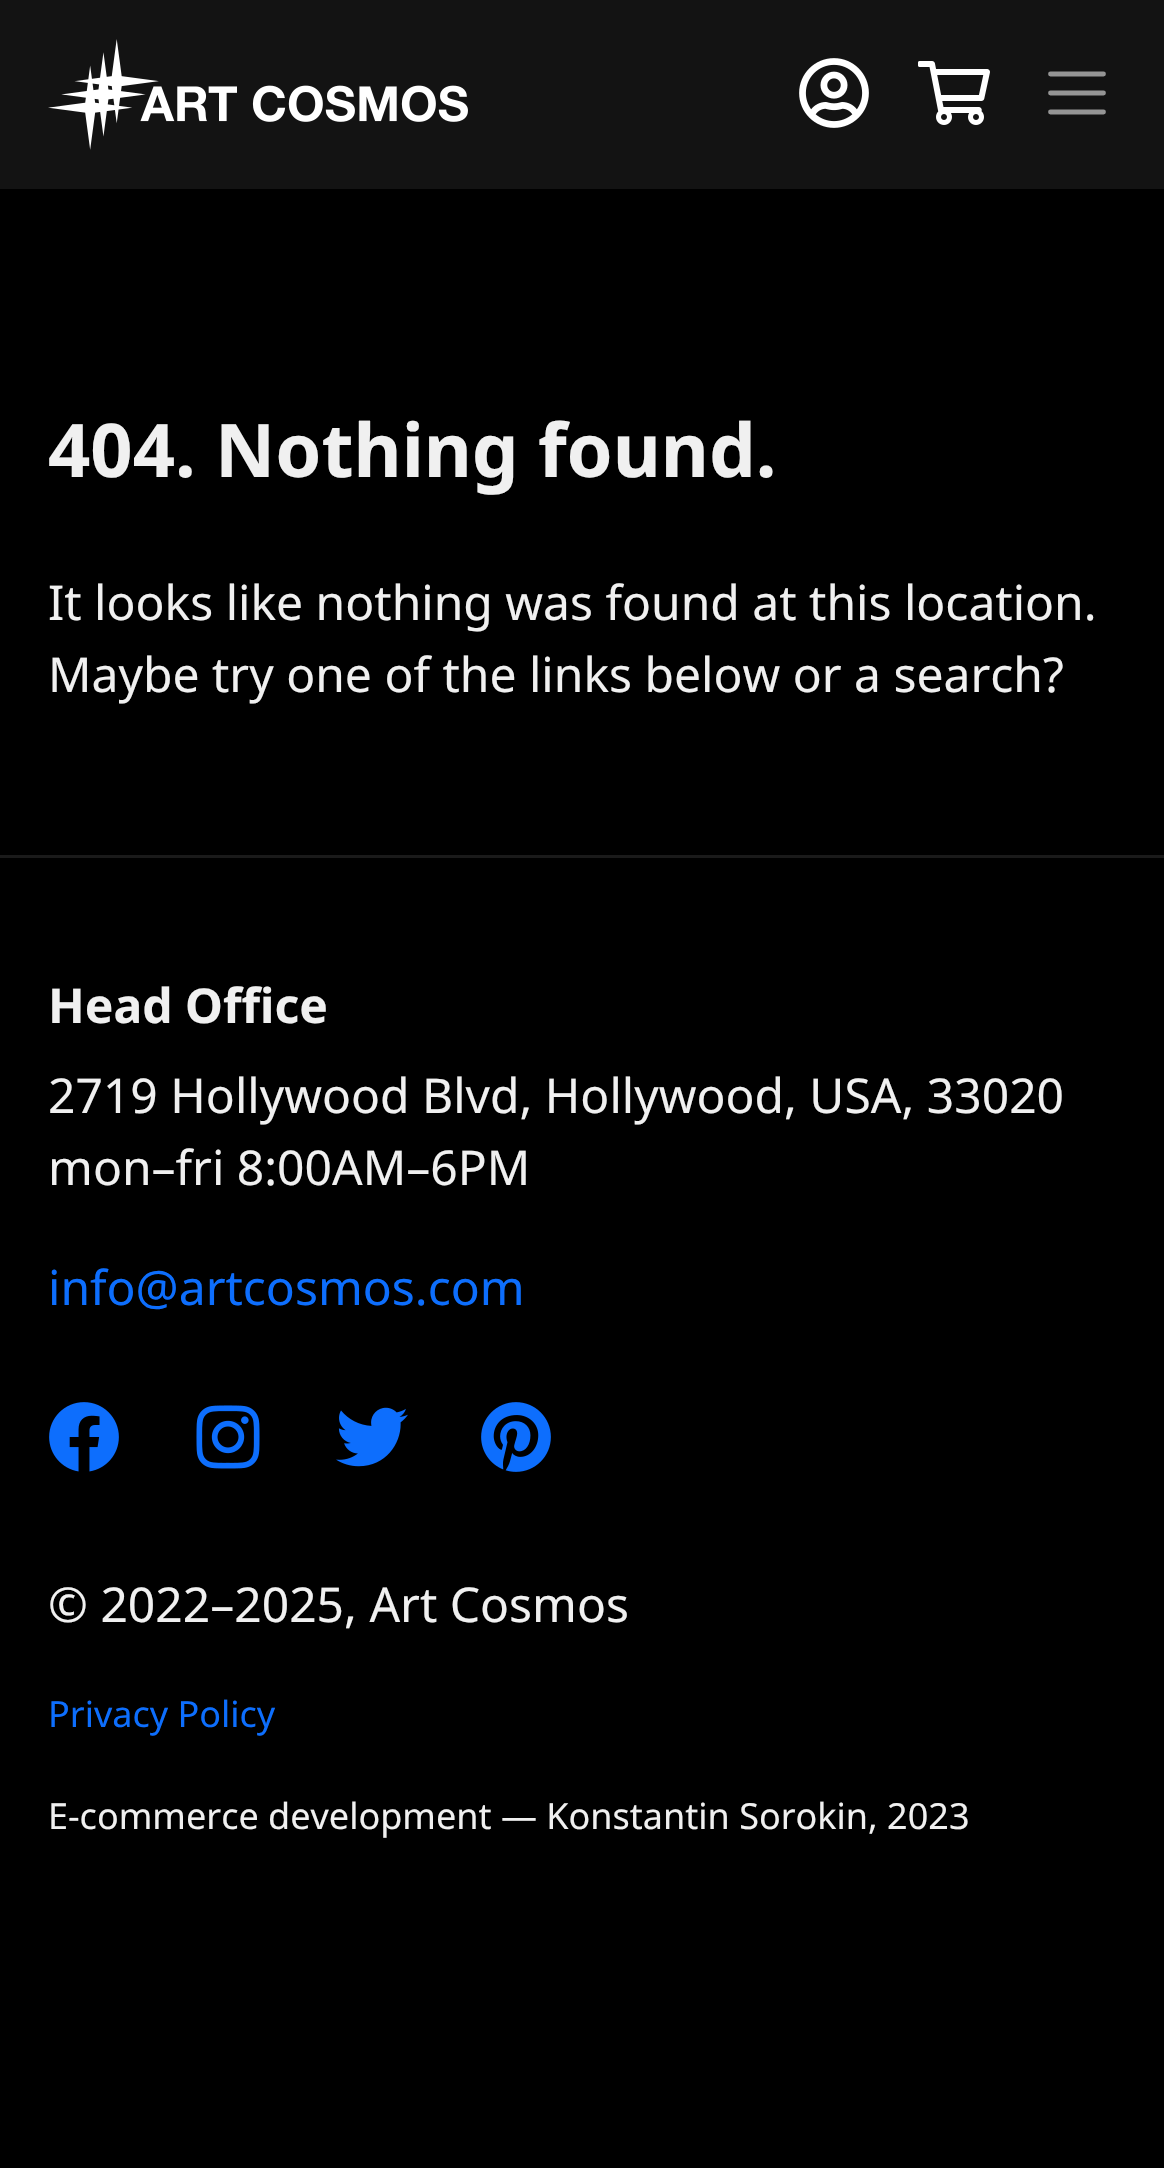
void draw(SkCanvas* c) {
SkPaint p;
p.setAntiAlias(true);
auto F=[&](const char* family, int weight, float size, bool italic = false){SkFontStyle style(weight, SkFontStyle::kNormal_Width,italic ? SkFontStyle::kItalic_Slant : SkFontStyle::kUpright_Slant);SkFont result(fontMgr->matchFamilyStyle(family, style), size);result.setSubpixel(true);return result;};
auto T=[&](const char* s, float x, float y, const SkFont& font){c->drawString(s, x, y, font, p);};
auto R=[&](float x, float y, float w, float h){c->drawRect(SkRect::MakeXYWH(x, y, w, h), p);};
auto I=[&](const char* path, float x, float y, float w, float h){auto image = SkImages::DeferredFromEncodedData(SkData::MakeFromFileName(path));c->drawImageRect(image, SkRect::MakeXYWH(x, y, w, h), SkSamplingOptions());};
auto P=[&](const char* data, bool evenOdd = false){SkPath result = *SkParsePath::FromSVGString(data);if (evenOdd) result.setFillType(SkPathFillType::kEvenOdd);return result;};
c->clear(0xff000000);
p.setColor(0xff131313);
R(0,0,1164,189);
I("1.png",48,39,420,111);
I("2.png",799,58,70,70);
I("3.png",918,61,72,64);
p.setStroke(true);
p.setStrokeWidth(4.8);
p.setStrokeCap(SkPaint::kRound_Cap);
p.setColor(0xff959595);
c->drawPath(P("M1050.5 74h53m-53 19h53m-53 19h53"),p);
auto f1 = F("Noto Sans",700,74);
p.setStroke(false);
p.setColor(0xfff0f0f0);
T("404. Nothing found.",48,477,f1);
auto f2 = F("Noto Sans",400,48);
T("It looks like nothing was found at this location.",48,620,f2);
T("Maybe try one of the links below or a search?",48,692,f2);
p.setColor(0xff1a1a1a);
R(0,855,1164,3);
auto f3 = F("Noto Sans",700,48);
p.setColor(0xfff0f0f0);
T("Head Office",48,1023,f3);
T("2719 Hollywood Blvd, Hollywood, USA, 33020",48,1113,f2);
T("mon–fri 8:00AM–6PM",48,1185,f2);
p.setColor(0xff0d6efd);
T("info@artcosmos.com",48,1305,f2);
I("4.png",49,1402,70,70);
I("5.png",196,1405,64,64);
I("6.png",336,1407,72,60);
I("7.png",481,1402,70,70);
p.setColor(0xfff0f0f0);
T("© 2022–2025, Art Cosmos",48,1622,f2);
auto f4 = F("Noto Sans",400,36);
p.setColor(0xff0d6efd);
T("Privacy Policy",48,1727,f4);
p.setColor(0xfff0f0f0);
T("E-commerce development — Konstantin Sorokin, 2023",48,1829,f4);
}
